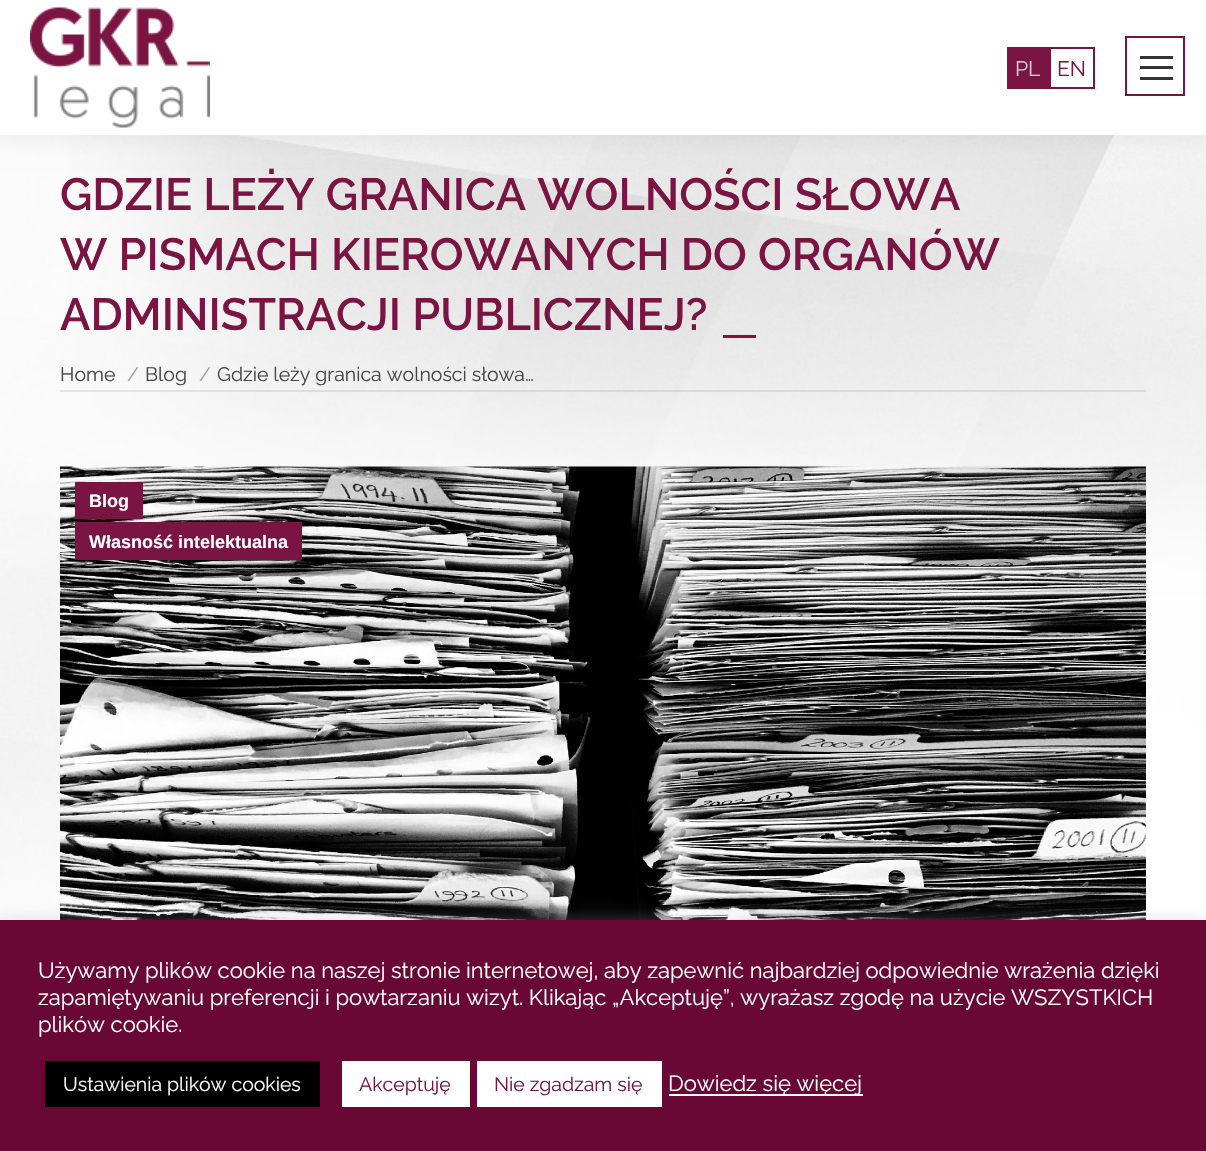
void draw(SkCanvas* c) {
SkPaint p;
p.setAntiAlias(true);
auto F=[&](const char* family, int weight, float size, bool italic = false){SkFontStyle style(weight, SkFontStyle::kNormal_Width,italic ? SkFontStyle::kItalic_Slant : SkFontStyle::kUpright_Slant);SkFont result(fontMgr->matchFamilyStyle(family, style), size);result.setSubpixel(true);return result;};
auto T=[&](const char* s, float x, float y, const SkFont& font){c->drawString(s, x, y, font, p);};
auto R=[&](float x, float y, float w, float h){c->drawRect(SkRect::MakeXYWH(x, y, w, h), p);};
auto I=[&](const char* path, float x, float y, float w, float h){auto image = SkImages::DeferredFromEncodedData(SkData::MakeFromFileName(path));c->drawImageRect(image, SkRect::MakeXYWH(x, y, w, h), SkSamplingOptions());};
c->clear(0xffffffff);
I("1.png",0,135,1206,784);
p.setColor(0x12000000);
p.setMaskFilter(SkMaskFilter::MakeBlur(kNormal_SkBlurStyle, 11));
c->drawRect(SkRect::MakeXYWH(-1,-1,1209,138),p);
p.setMaskFilter(nullptr);
p.setColor(0xffffffff);
R(0,0,1206,135);
I("2.png",30,7,180,121);
p.setColor(0xff7a1443);
R(1007,47,42,42);
auto f1 = F("Raleway",400,21);
p.setColor(0xffcccccc);
T("PL",1015,76,f1);
p.setStroke(true);
p.setStrokeWidth(2);
p.setColor(0xff7a1443);
c->drawRect(SkRect::MakeXYWH(1050,48,44,40),p);
p.setStroke(false);
T("EN",1057,76,f1);
p.setStroke(true);
c->drawRect(SkRect::MakeXYWH(1126,37,58,58),p);
p.setStroke(false);
p.setColor(0xff333333);
R(1140,56,33,3);
R(1140,66,33,3);
R(1140,77,33,3);
auto f2 = F("Raleway",600,45);
p.setColor(0xff7a1443);
T("GDZIE LEŻY GRANICA WOLNOŚCI SŁOWA",60,210,f2);
T("W PISMACH KIEROWANYCH DO ORGANÓW",60,270,f2);
T("ADMINISTRACJI PUBLICZNEJ?",60,330,f2);
R(723,335,33,3);
auto f3 = F("Raleway",400,19.5);
p.setColor(0xff444444);
T("Home",60,381,f3);
p.setColor(0xff9e9e9e);
T("/",127,381,f3);
p.setColor(0xff444444);
T("Blog",145,381,f3);
p.setColor(0xff9e9e9e);
T("/",199,381,f3);
p.setColor(0xff444444);
T("Gdzie leży granica wolności słowa…",217,381,f3);
p.setColor(0x1c333333);
R(60,390,1086,2);
I("3.png",60,466,1086,454);
p.setColor(0xff7a1443);
R(75,482,68,37);
auto f4 = F("Liberation Sans",700,18);
p.setColor(0xffffffff);
T("Blog",89,507,f4);
p.setColor(0xff7a1443);
R(75,522,227,38);
p.setColor(0xffffffff);
T("Własność intelektualna",89,548,f4);
p.setColor(0x4dacabab);
p.setMaskFilter(SkMaskFilter::MakeBlur(kNormal_SkBlurStyle, 7.5));
c->drawRect(SkRect::MakeXYWH(0,918,1206,233),p);
p.setMaskFilter(nullptr);
p.setColor(0xff690835);
R(0,920,1206,231);
auto f5 = F("Raleway",400,22);
p.setColor(0xffffffff);
T("Używamy plików cookie na naszej stronie internetowej, aby zapewnić najbardziej odpowiednie wrażenia dzięki",38,978,f5);
T("zapamiętywaniu preferencji i powtarzaniu wizyt. Klikając „Akceptuję”, wyrażasz zgodę na użycie WSZYSTKICH",38,1005,f5);
T("plików cookie.",38,1032,f5);
p.setColor(0xff000000);
R(45,1061,275,46);
p.setColor(0xffffffff);
T("Ustawienia plików cookies",63,1091,f3);
R(342,1061,128,46);
p.setColor(0xff7a1443);
T("Akceptuję",359,1091,f3);
p.setColor(0xffffffff);
R(477,1061,185,46);
p.setColor(0xff7a1443);
T("Nie zgadzam się",494,1091,f3);
p.setColor(0xffffffff);
R(669,1094,194,2);
T("Dowiedz się więcej",668,1091,f5);
}
